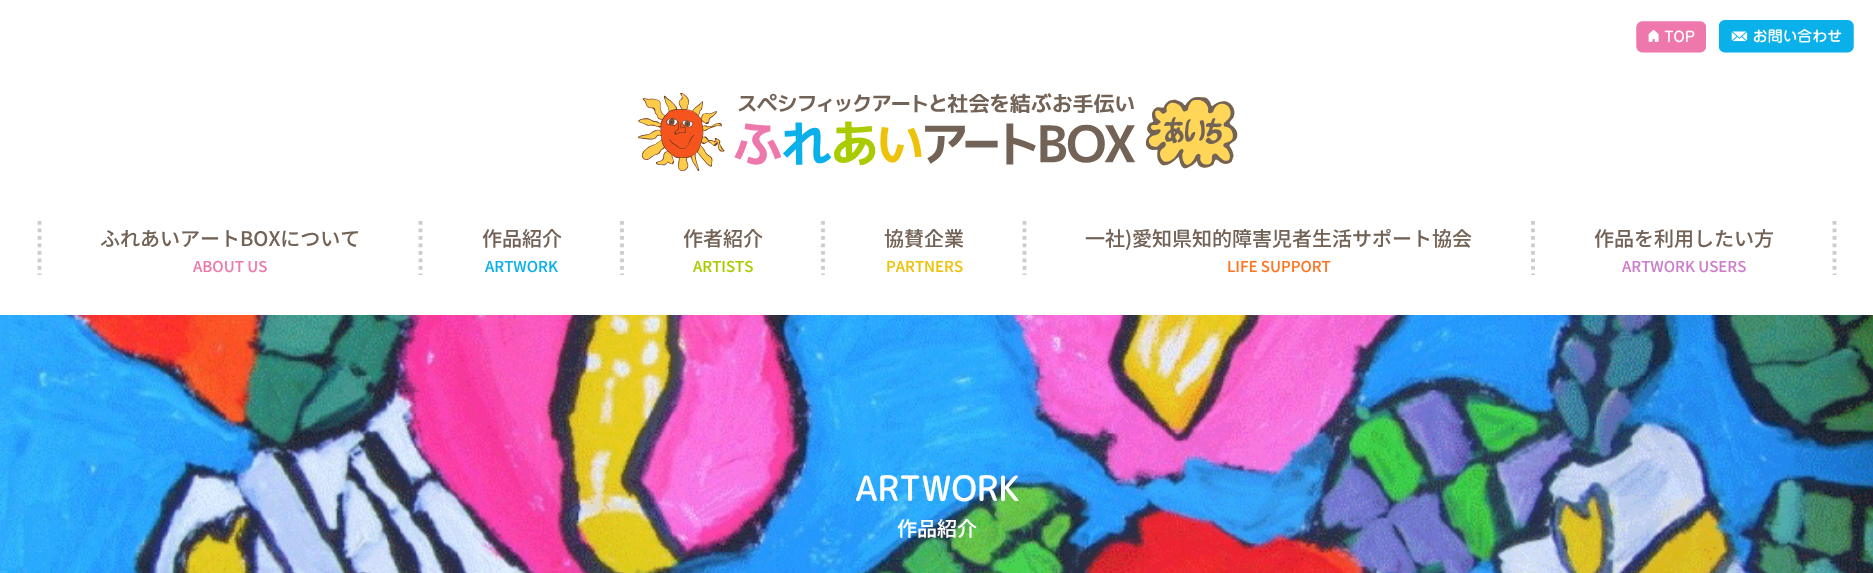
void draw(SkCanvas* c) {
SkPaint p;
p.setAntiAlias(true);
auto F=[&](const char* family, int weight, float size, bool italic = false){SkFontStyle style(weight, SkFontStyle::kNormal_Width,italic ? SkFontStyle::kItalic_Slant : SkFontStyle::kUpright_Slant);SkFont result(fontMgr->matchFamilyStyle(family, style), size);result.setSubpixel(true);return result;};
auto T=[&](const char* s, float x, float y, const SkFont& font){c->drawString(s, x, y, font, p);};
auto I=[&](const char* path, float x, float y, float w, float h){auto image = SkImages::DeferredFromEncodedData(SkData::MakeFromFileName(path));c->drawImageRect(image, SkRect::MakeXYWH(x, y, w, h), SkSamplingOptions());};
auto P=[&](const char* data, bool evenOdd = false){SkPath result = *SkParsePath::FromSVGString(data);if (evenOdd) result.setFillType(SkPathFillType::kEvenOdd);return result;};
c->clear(0xffffffff);
I("1.png",1636,21,70,32);
I("2.png",1719,20,135,33);
I("3.png",638,93,600,78);
p.setStroke(true);
p.setStrokeWidth(3.8);
p.setColor(0xffcccccc);
p.setPathEffect(SkDashPathEffect::Make({{3.75f,3.75f}}, 0));
c->drawPath(P("M39.5 221v54"),p);
p.setPathEffect(nullptr);
auto f1 = F("Noto Sans JP",500,20);
p.setStroke(false);
p.setColor(0xff736357);
T("ふれあいアートBOXについて",100,246,f1);
auto f2 = F("Noto Sans JP",500,15);
p.setColor(0xffee78ac);
T("ABOUT US",193,272,f2);
p.setStroke(true);
p.setColor(0xffcccccc);
p.setPathEffect(SkDashPathEffect::Make({{3.75f,3.75f}}, 0));
c->drawPath(P("M420.5 221v54"),p);
p.setPathEffect(nullptr);
p.setStroke(false);
p.setColor(0xff736357);
T("作品紹介",482,246,f1);
p.setColor(0xff0ab0ea);
T("ARTWORK",485,272,f2);
p.setStroke(true);
p.setColor(0xffcccccc);
p.setPathEffect(SkDashPathEffect::Make({{3.75f,3.75f}}, 0));
c->drawPath(P("M622 221v54"),p);
p.setPathEffect(nullptr);
p.setStroke(false);
p.setColor(0xff736357);
T("作者紹介",683,246,f1);
p.setColor(0xffa9cc00);
T("ARTISTS",693,272,f2);
p.setStroke(true);
p.setColor(0xffcccccc);
p.setPathEffect(SkDashPathEffect::Make({{3.75f,3.75f}}, 0));
c->drawPath(P("M823 221v54"),p);
p.setPathEffect(nullptr);
p.setStroke(false);
p.setColor(0xff736357);
T("協賛企業",884,246,f1);
p.setColor(0xffedc208);
T("PARTNERS",886,272,f2);
p.setStroke(true);
p.setColor(0xffcccccc);
p.setPathEffect(SkDashPathEffect::Make({{3.75f,3.75f}}, 0));
c->drawPath(P("M1024.5 221v54"),p);
p.setPathEffect(nullptr);
p.setStroke(false);
p.setColor(0xff736357);
T("一社)愛知県知的障害児者生活サポート協会",1085,246,f1);
p.setColor(0xffff7420);
T("LIFE SUPPORT",1227,272,f2);
p.setStroke(true);
p.setColor(0xffcccccc);
p.setPathEffect(SkDashPathEffect::Make({{3.75f,3.75f}}, 0));
c->drawPath(P("M1834.5 221v54"),p);
p.setPathEffect(nullptr);
p.setPathEffect(SkDashPathEffect::Make({{3.75f,3.75f}}, 0));
c->drawPath(P("M1533 221v54"),p);
p.setPathEffect(nullptr);
p.setStroke(false);
p.setColor(0xff736357);
T("作品を利用したい方",1594,246,f1);
p.setColor(0xffcd7dc9);
T("ARTWORK USERS",1622,272,f2);
I("4.png",0,315,1873,258);
auto f3 = F("Rounded Mplus 1c",500,35);
p.setColor(0xffffffff);
T("ARTWORK",855,501,f3);
T("作品紹介",897,536,f1);
}
